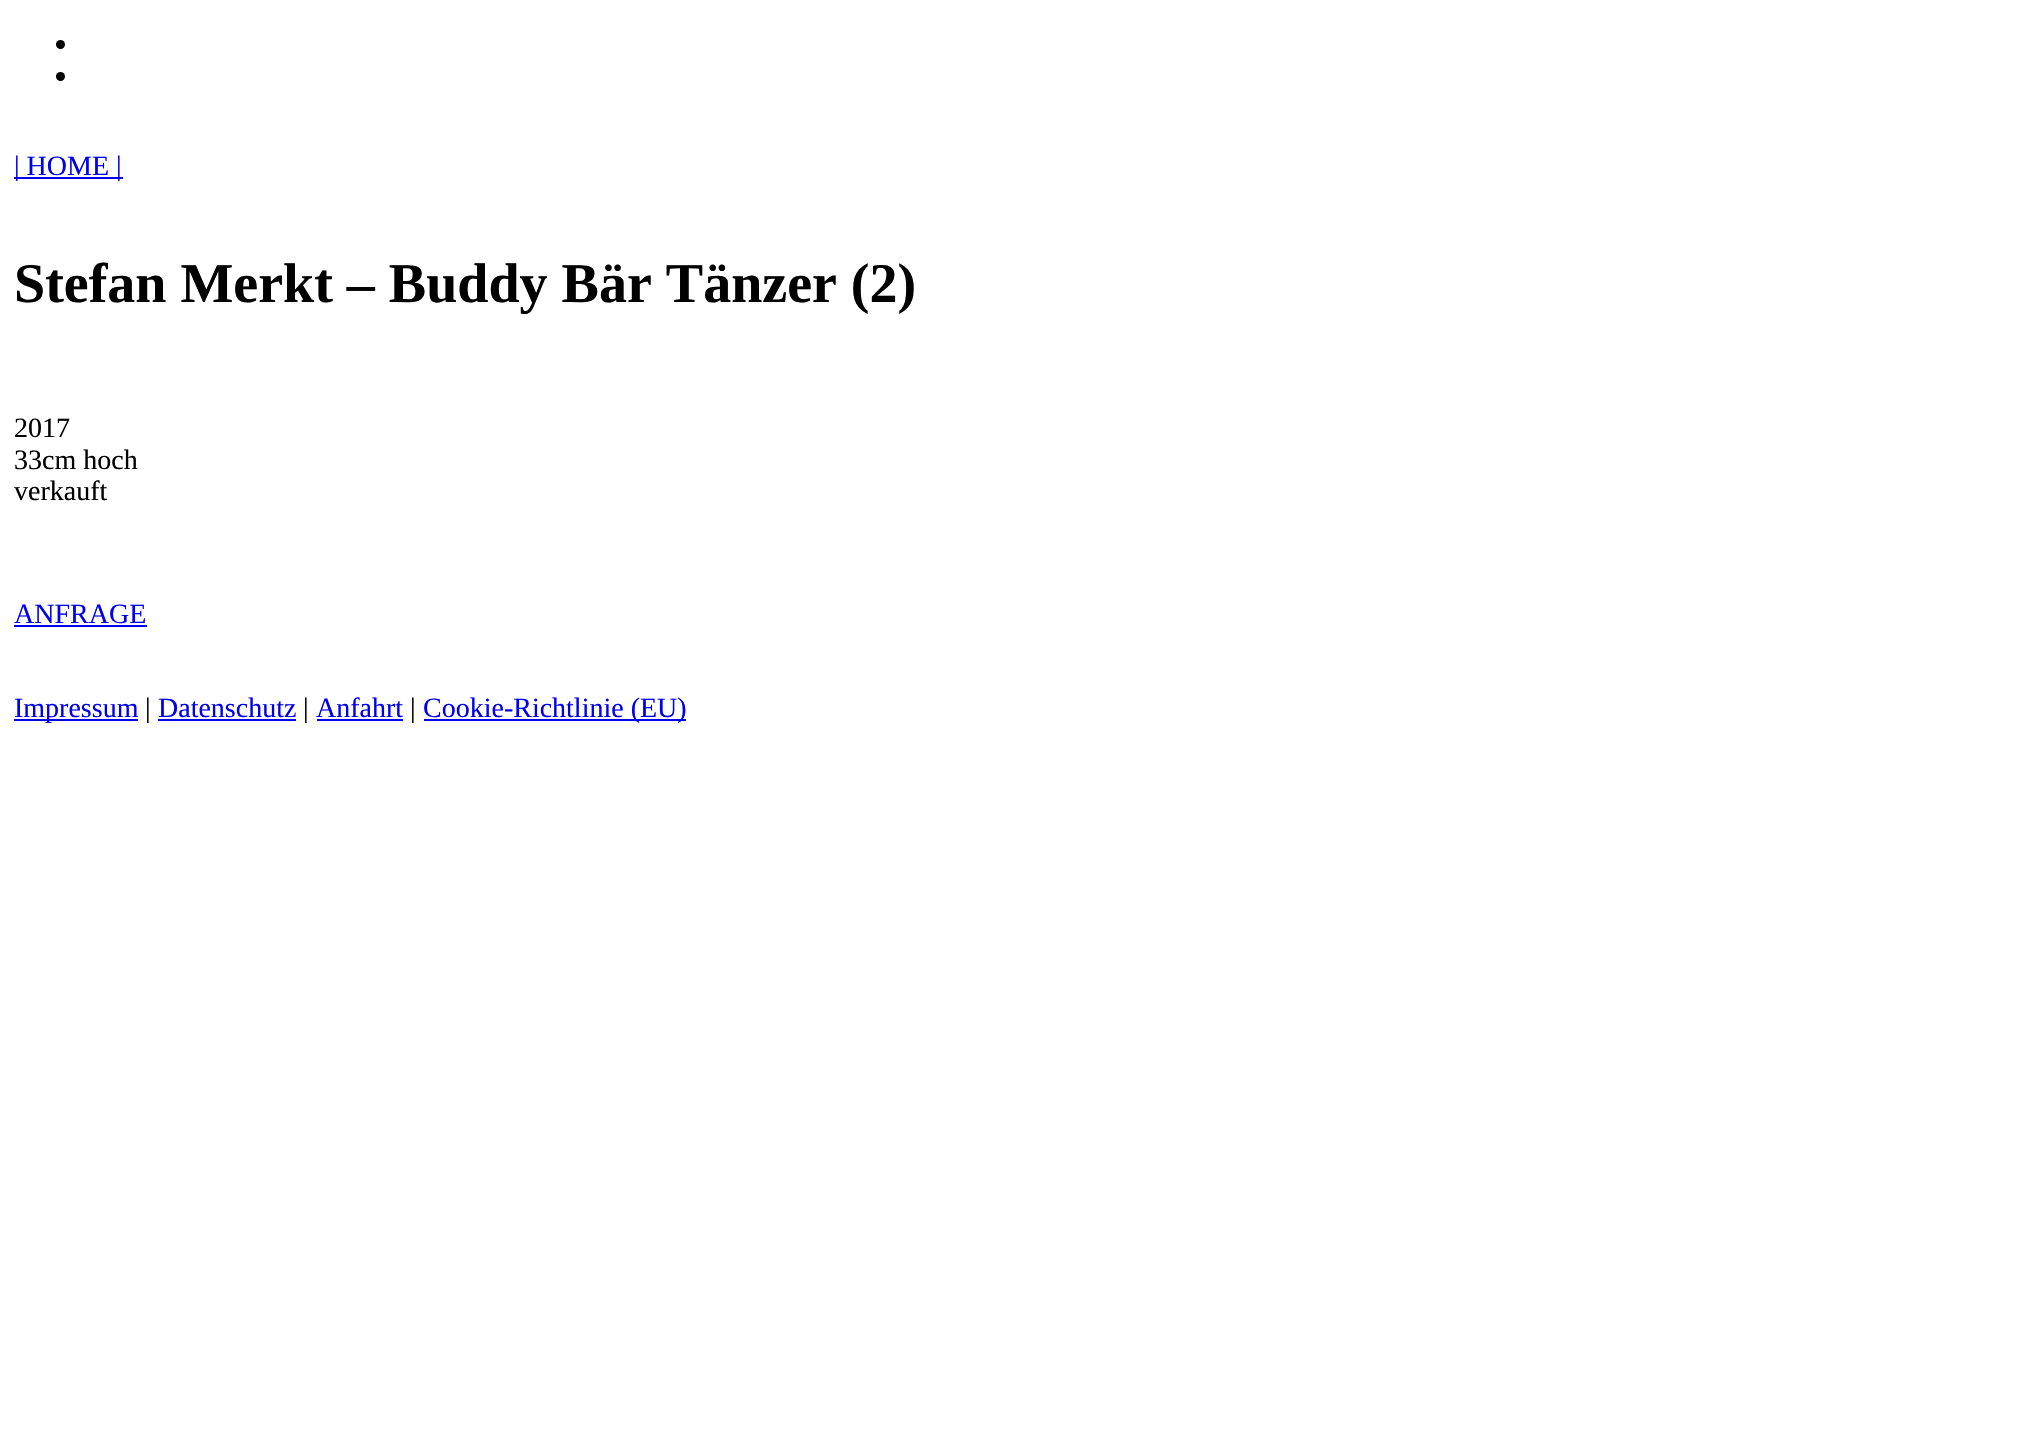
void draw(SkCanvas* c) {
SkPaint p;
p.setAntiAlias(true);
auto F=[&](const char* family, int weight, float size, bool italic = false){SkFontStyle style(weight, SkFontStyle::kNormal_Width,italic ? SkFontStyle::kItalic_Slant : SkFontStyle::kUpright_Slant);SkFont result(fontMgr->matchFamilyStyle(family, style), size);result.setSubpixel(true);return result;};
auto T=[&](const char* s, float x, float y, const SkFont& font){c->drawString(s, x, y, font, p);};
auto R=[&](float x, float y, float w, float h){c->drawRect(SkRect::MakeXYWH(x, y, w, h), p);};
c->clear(0xffffffff);
p.setColor(0xff000000);
c->drawCircle(60.5,44.5,4.5,p);
c->drawCircle(60.5,76.5,4.5,p);
p.setColor(0xff0000ee);
R(14,177,109,2);
auto f1 = F("Liberation Serif",400,28);
T("| HOME |",14,175,f1);
auto f2 = F("Liberation Serif",700,56);
p.setColor(0xff000000);
T("Stefan Merkt – Buddy Bär Tänzer (2)",14,302,f2);
T("2017",14,437,f1);
T("33cm hoch",14,469,f1);
T("verkauft",14,500,f1);
p.setColor(0xff0000ee);
T("ANFRAGE",14,623,f1);
R(14,625,133,2);
R(14,719,124,2);
T("Impressum",14,717,f1);
p.setColor(0xff000000);
T("|",145,717,f1);
p.setColor(0xff0000ee);
T("Datenschutz",158,717,f1);
R(158,719,138,2);
p.setColor(0xff000000);
T("|",303,717,f1);
p.setColor(0xff0000ee);
T("Anfahrt",316,717,f1);
R(317,719,86,2);
p.setColor(0xff000000);
T("|",410,717,f1);
p.setColor(0xff0000ee);
R(424,719,262,2);
T("Cookie-Richtlinie (EU)",423,717,f1);
}
